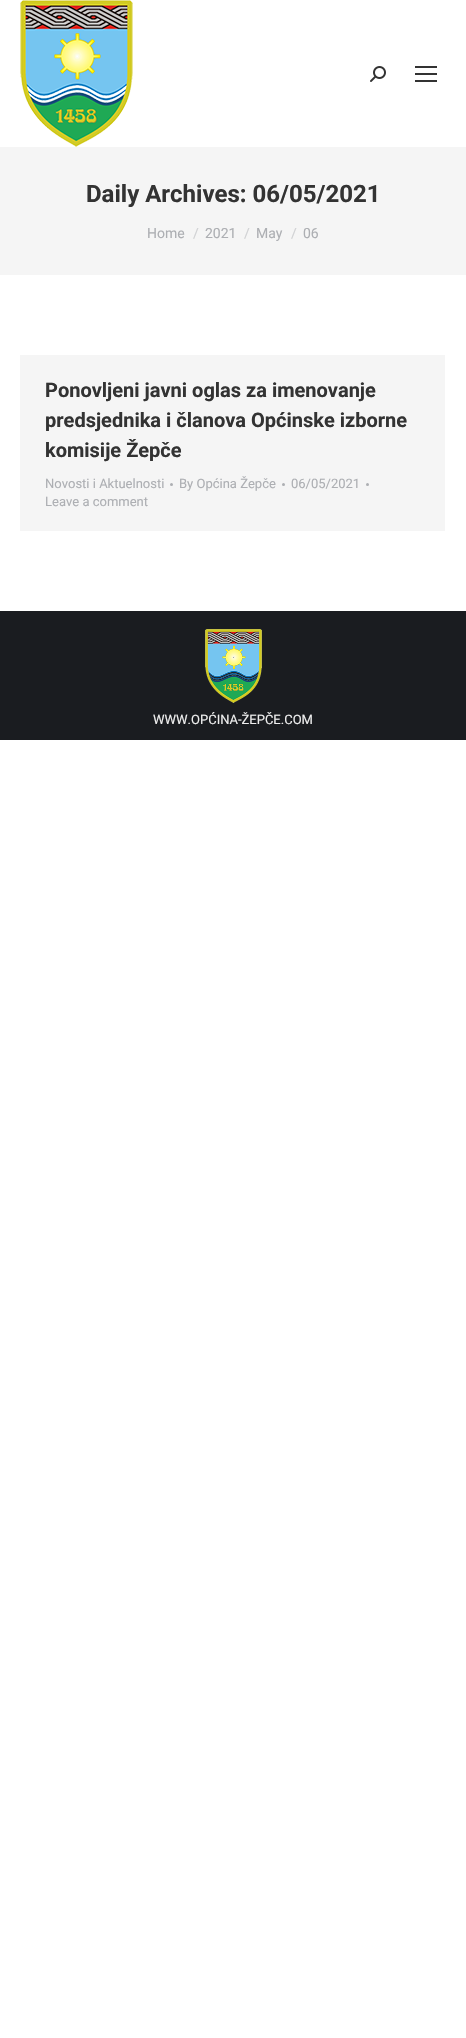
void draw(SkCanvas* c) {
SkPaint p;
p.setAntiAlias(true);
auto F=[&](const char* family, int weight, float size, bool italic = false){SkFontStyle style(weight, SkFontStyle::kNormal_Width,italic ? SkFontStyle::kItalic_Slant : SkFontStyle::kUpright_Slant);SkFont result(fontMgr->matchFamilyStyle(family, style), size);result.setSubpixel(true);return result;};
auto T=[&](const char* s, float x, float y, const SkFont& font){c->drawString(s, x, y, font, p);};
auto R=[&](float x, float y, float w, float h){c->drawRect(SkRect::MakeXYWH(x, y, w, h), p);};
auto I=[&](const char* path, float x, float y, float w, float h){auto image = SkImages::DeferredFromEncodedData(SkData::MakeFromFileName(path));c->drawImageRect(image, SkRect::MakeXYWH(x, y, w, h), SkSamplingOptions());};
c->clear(0xffffffff);
I("1.png",20,0,113,147);
I("2.png",370,66,16,16);
p.setColor(0xff333333);
R(415,66,22,2);
R(415,73,22,2);
R(415,80,22,2);
p.setColor(0xfff5f5f5);
R(0,147,466,128);
auto f1 = F("Roboto",700,24);
p.setColor(0xff333333);
T("Daily Archives: 06/05/2021",86,202,f1);
auto f2 = F("Roboto",400,14);
p.setColor(0xffadafb3);
T("Home",147,238,f2);
p.setColor(0xffd1d2d4);
T("/",193,238,f2);
p.setColor(0xffadafb3);
T("2021",205,238,f2);
p.setColor(0xffd1d2d4);
T("/",244,238,f2);
p.setColor(0xffadafb3);
T("May",256,238,f2);
p.setColor(0xffd1d2d4);
T("/",291,238,f2);
p.setColor(0xffadafb3);
T("06",303,238,f2);
p.setColor(0xfff5f5f5);
R(20,355,425,176);
auto f3 = F("Roboto",700,20);
p.setColor(0xff333333);
T("Ponovljeni javni oglas za imenovanje",45,397,f3);
T("predsjednika i članova Općinske izborne",45,427,f3);
T("komisije Žepče",45,457,f3);
auto f4 = F("Roboto",400,13);
p.setColor(0xffadafb3);
T("Novosti i Aktuelnosti",45,488,f4);
c->drawCircle(171.5,484.5,1.5,p);
T("By Općina Žepče",179,488,f4);
c->drawCircle(283.5,484.5,1.5,p);
T("06/05/2021",291,488,f4);
c->drawCircle(367.5,484.5,1.5,p);
T("Leave a comment",45,506,f4);
p.setColor(0xff1a1c20);
R(0,611,466,129);
I("3.png",205,629,57,74);
p.setColor(0xffeeeeee);
T("WWW.OPĆINA-ŽEPČE.COM",153,724,f4);
}
